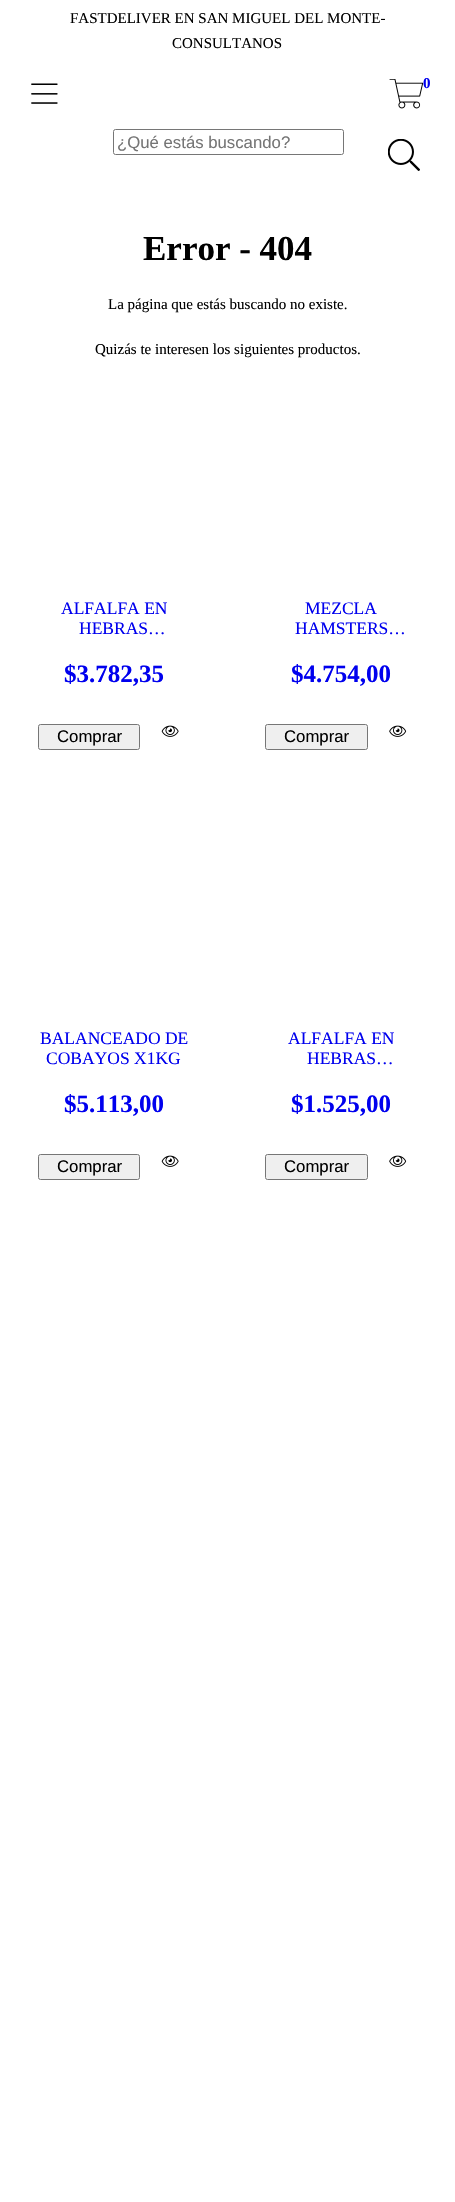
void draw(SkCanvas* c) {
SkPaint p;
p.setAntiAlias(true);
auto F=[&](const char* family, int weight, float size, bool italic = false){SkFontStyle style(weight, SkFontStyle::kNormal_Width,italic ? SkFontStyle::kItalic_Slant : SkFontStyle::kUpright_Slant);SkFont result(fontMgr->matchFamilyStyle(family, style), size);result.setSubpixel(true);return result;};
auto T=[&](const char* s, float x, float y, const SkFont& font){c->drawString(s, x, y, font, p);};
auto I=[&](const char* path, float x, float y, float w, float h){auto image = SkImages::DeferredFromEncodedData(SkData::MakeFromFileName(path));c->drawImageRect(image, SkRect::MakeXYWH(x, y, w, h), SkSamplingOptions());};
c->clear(0xffffffff);
auto f1 = F("Liberation Serif",400,15);
p.setColor(0xff000000);
T("FASTDELIVER EN SAN MIGUEL DEL MONTE-",70,23,f1);
T("CONSULTANOS",172,48,f1);
I("1.png",31,83,27,21);
I("2.png",389,79,35,30);
auto f2 = F("Liberation Serif",700,15);
p.setColor(0xff0000ee);
T("0",423,88,f2);
p.setStroke(true);
p.setStrokeWidth(1);
p.setColor(0xff767676);
c->drawRoundRect(SkRect::MakeXYWH(113.5,129.5,230,25),2,2,p);
auto f3 = F("Liberation Sans",400,16.75);
p.setStroke(false);
p.setColor(0xff757575);
T("¿Qué estás buscando?",117,148,f3);
I("3.png",388,139,32,32);
auto f4 = F("Liberation Serif",700,35);
p.setColor(0xff000000);
T("Error - 404",143,260,f4);
T("La página que estás buscando no existe.",108,309,f1);
T("Quizás te interesen los siguientes productos.",95,354,f1);
auto f5 = F("Liberation Serif",400,17.5);
p.setColor(0xff0000ee);
T("ALFALFA EN",61,614,f5);
T("HEBRAS…",79,634,f5);
auto f6 = F("Liberation Serif",700,25);
T("$3.782,35",64,682,f6);
p.setColor(0xffefefef);
c->drawRoundRect(SkRect::MakeXYWH(38.5,724.5,101,25),2,2,p);
p.setStroke(true);
p.setColor(0xff767676);
c->drawRoundRect(SkRect::MakeXYWH(38.5,724.5,101,25),2,2,p);
p.setStroke(false);
p.setColor(0xff000000);
T("Comprar",57,742,f3);
I("4.png",161,725,18,12);
p.setColor(0xff0000ee);
T("MEZCLA",305,614,f5);
T("HAMSTERS…",295,634,f5);
T("$4.754,00",291,682,f6);
p.setColor(0xffefefef);
c->drawRoundRect(SkRect::MakeXYWH(265.5,724.5,102,25),2,2,p);
p.setStroke(true);
p.setColor(0xff767676);
c->drawRoundRect(SkRect::MakeXYWH(265.5,724.5,102,25),2,2,p);
p.setStroke(false);
p.setColor(0xff000000);
T("Comprar",284,742,f3);
I("5.png",389,725,18,12);
p.setColor(0xff0000ee);
T("BALANCEADO DE",40,1044,f5);
T("COBAYOS X1KG",46,1064,f5);
T("$5.113,00",64,1112,f6);
p.setColor(0xffefefef);
c->drawRoundRect(SkRect::MakeXYWH(38.5,1154.5,101,25),2,2,p);
p.setStroke(true);
p.setColor(0xff767676);
c->drawRoundRect(SkRect::MakeXYWH(38.5,1154.5,101,25),2,2,p);
p.setStroke(false);
p.setColor(0xff000000);
T("Comprar",57,1172,f3);
I("4.png",161,1155,18,12);
p.setColor(0xff0000ee);
T("ALFALFA EN",288,1044,f5);
T("HEBRAS…",307,1064,f5);
T("$1.525,00",291,1112,f6);
p.setColor(0xffefefef);
c->drawRoundRect(SkRect::MakeXYWH(265.5,1154.5,102,25),2,2,p);
p.setStroke(true);
p.setColor(0xff767676);
c->drawRoundRect(SkRect::MakeXYWH(265.5,1154.5,102,25),2,2,p);
p.setStroke(false);
p.setColor(0xff000000);
T("Comprar",284,1172,f3);
I("5.png",389,1155,18,12);
}
